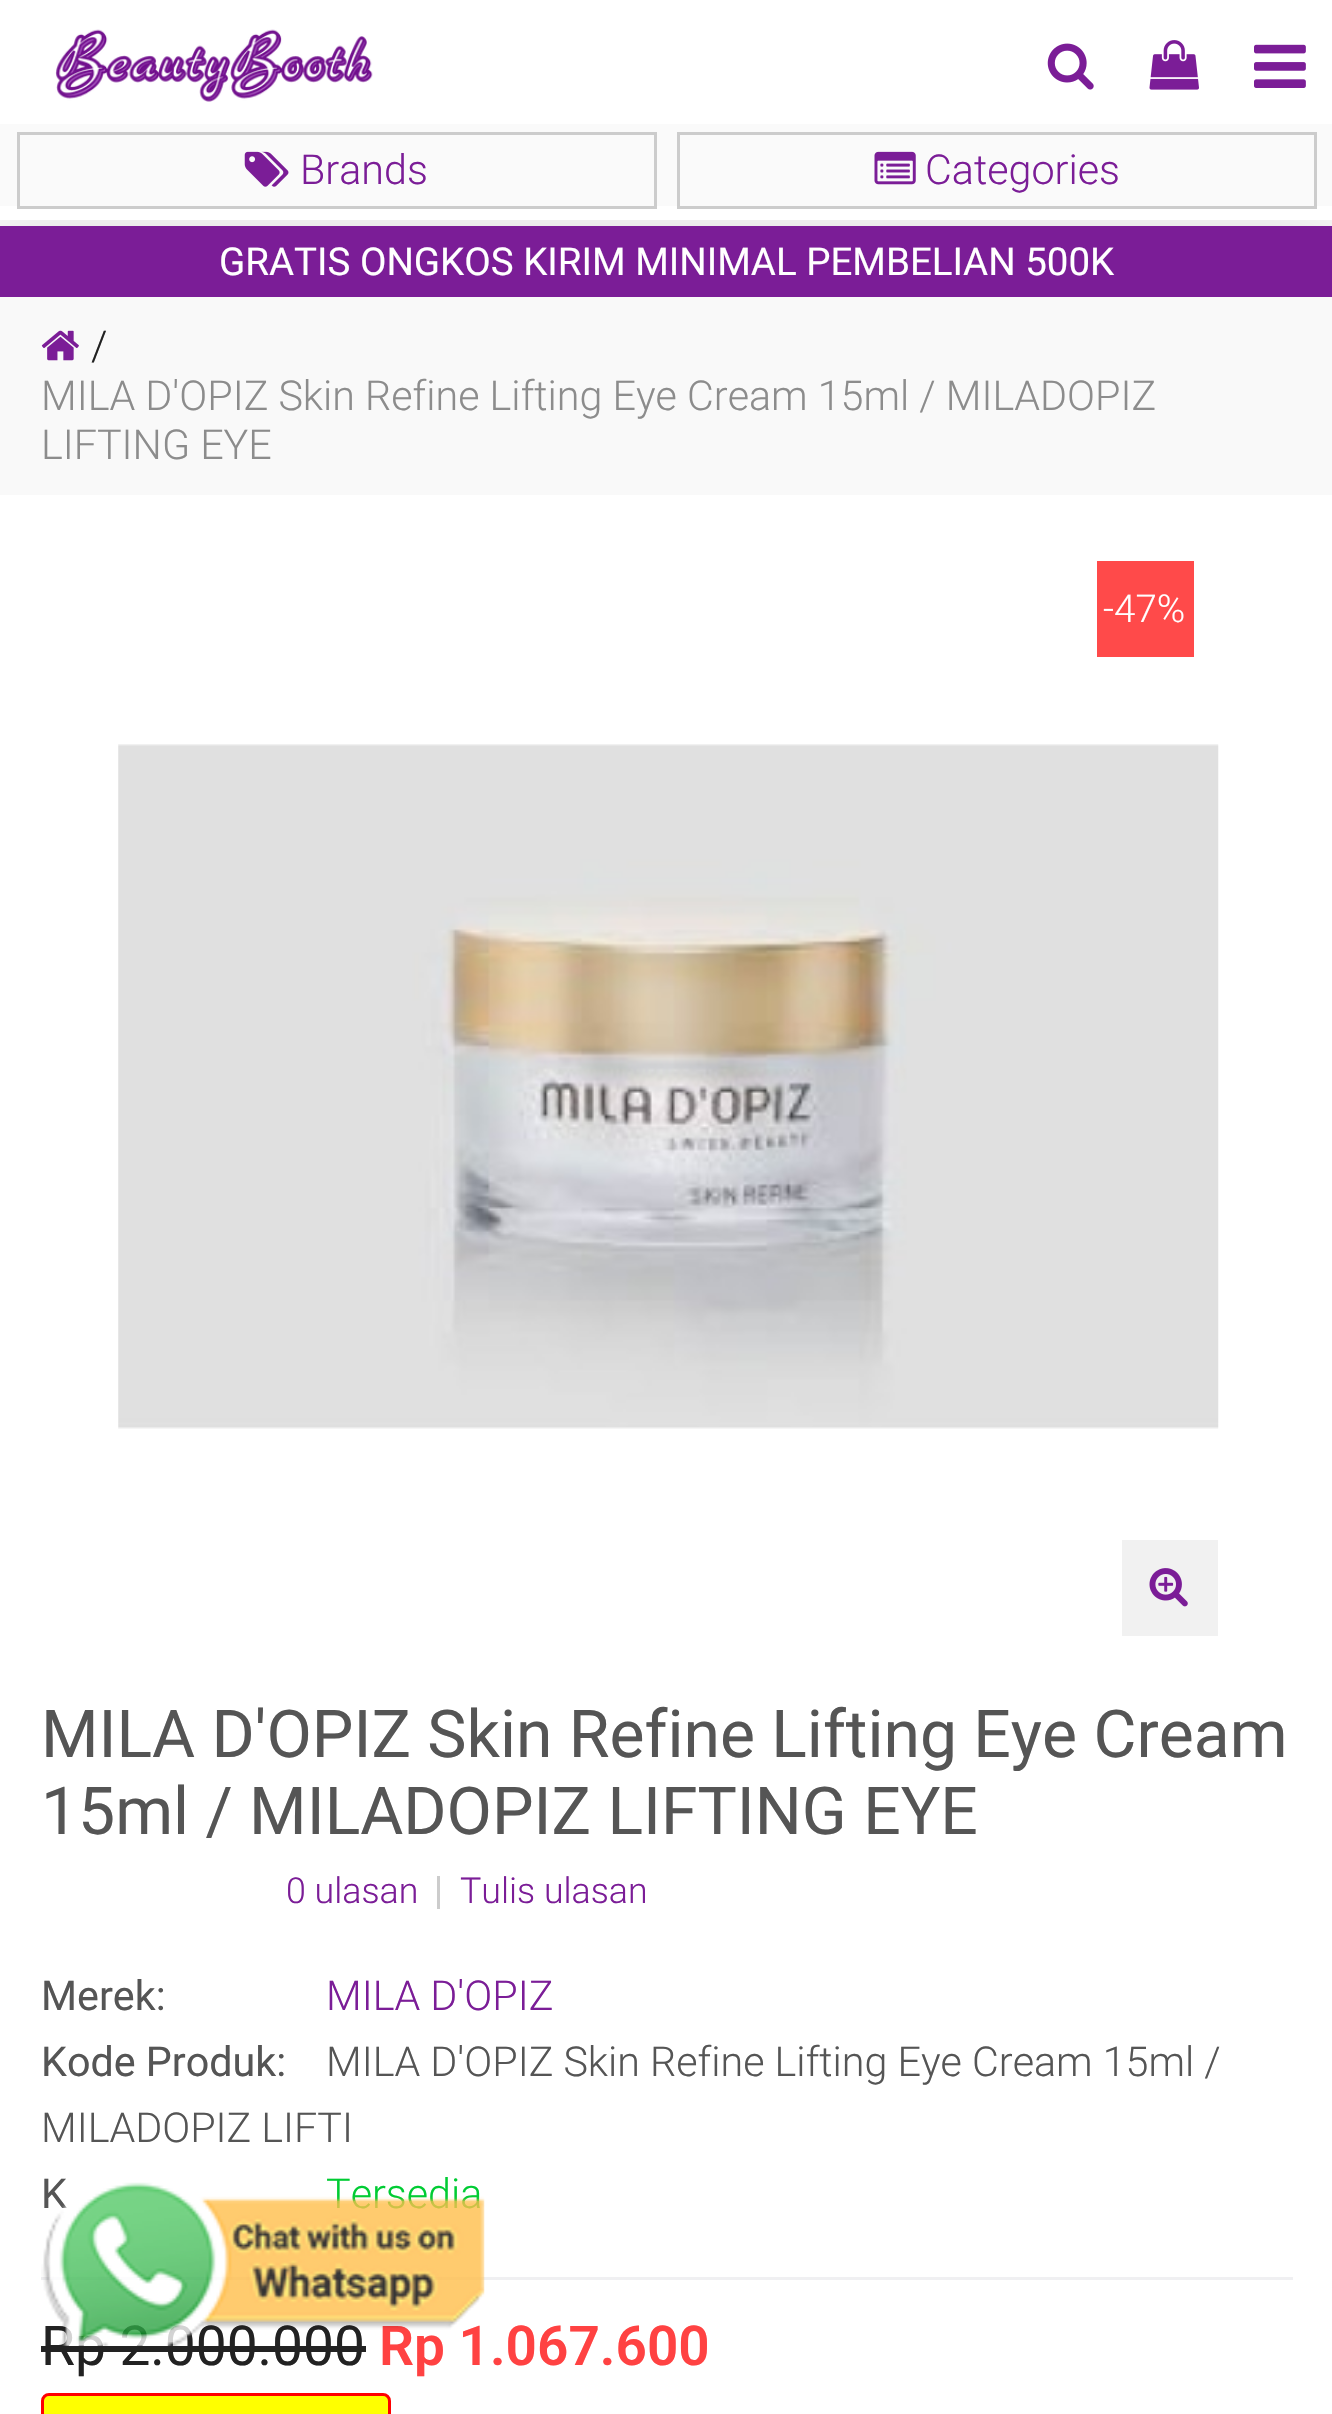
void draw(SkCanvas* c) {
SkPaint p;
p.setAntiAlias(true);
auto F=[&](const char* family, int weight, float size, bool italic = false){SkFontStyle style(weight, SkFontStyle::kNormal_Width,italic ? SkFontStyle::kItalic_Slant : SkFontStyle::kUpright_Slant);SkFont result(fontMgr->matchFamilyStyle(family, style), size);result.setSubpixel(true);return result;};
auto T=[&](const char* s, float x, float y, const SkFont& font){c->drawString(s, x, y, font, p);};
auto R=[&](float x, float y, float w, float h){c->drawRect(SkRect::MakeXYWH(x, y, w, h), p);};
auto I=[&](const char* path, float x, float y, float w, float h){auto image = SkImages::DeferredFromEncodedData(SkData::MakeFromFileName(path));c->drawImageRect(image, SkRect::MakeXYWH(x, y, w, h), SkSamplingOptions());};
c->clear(0xfff9f9f9);
c->save();
c->clipRect(SkRect::MakeXYWH(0,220,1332,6));
p.setColor(0x1a000000);
p.setMaskFilter(SkMaskFilter::MakeBlur(kNormal_SkBlurStyle, 34.5));
c->drawRect(SkRect::MakeXYWH(0,226,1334,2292),p);
p.setMaskFilter(nullptr);
c->restore();
p.setColor(0xffffffff);
R(0,0,1332,220);
I("1.png",55,29,318,73);
I("2.png",1047,43,47,47);
I("3.png",1149,40,50,50);
I("4.png",1254,44,52,44);
p.setColor(0xfffafafa);
R(0,124,1332,82);
p.setStroke(true);
p.setStrokeWidth(3);
p.setColor(0xffcccccc);
c->drawRect(SkRect::MakeXYWH(18.5,133.5,637,74),p);
I("5.png",244,151,45,36);
auto f1 = F("Roboto",300,41.25);
p.setStroke(false);
p.setColor(0xff7b1d97);
T("Brands",300,184,f1);
p.setStroke(true);
p.setColor(0xffcccccc);
c->drawRect(SkRect::MakeXYWH(678.5,133.5,637,74),p);
I("6.png",874,151,42,34);
p.setStroke(false);
p.setColor(0xff7b1d97);
T("Categories",925,184,f1);
R(0,226,1332,71);
auto f2 = F("Roboto",400,38.5);
p.setColor(0xffffffff);
T("GRATIS ONGKOS KIRIM MINIMAL PEMBELIAN 500K",219,275,f2);
I("7.png",41,330,38,31);
p.setColor(0xff222222);
T("/",91,360,f1);
p.setColor(0xff8c8c8c);
T("MILA D'OPIZ Skin Refine Lifting Eye Cream 15ml / MILADOPIZ",41,410,f1);
T("LIFTING EYE",41,459,f1);
p.setColor(0xffffffff);
R(0,495,1332,1919);
p.setColor(0xffff4a4a);
R(1097,561,97,96);
auto f3 = F("Roboto",300,38.5);
p.setColor(0xffffffff);
T("-47%",1103,622,f3);
I("8.png",118,744,1101,685);
p.setColor(0xfff1f1f1);
R(1122,1540,96,96);
I("9.png",1149,1568,39,39);
auto f4 = F("Roboto",400,66);
p.setColor(0xff555555);
T("MILA D'OPIZ Skin Refine Lifting Eye Cream",41,1757,f4);
T("15ml / MILADOPIZ LIFTING EYE",41,1834,f4);
auto f5 = F("Roboto",300,35.75);
p.setColor(0xff7b1d97);
T("0 ulasan",286,1903,f5);
p.setColor(0xffcccccc);
R(437,1876,3,33);
p.setColor(0xff7b1d97);
T("Tulis ulasan",460,1903,f5);
auto f6 = F("Roboto",400,41.25);
p.setColor(0xff555555);
T("Merek:",41,2010,f6);
p.setColor(0xff7b1d97);
T("MILA D'OPIZ",326,2010,f1);
p.setColor(0xff555555);
T("Kode Produk:",41,2076,f6);
T("MILA D'OPIZ Skin Refine Lifting Eye Cream 15ml /",326,2076,f1);
T("MILADOPIZ LIFTI",41,2142,f1);
T("K",41,2208,f6);
p.setColor(0xff00cc33);
T("Tersedia",326,2208,f1);
p.setColor(0xfff0f0f2);
R(41,2277,1252,3);
auto f7 = F("Roboto",400,55);
p.setColor(0xff222222);
T("Rp 2.000.000",41,2365,f7);
R(41,2346,325,6);
auto f8 = F("Roboto",600,55);
p.setColor(0xffff4242);
T("Rp 1.067.600",379,2365,f8);
p.setColor(0xffffff00);
c->drawRoundRect(SkRect::MakeXYWH(42.5,2394.5,347,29),6.5,6.5,p);
p.setStroke(true);
p.setColor(0xffff0000);
c->drawRoundRect(SkRect::MakeXYWH(42.5,2394.5,347,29),6.5,6.5,p);
I("10.png",41,2180,444,166);
}
